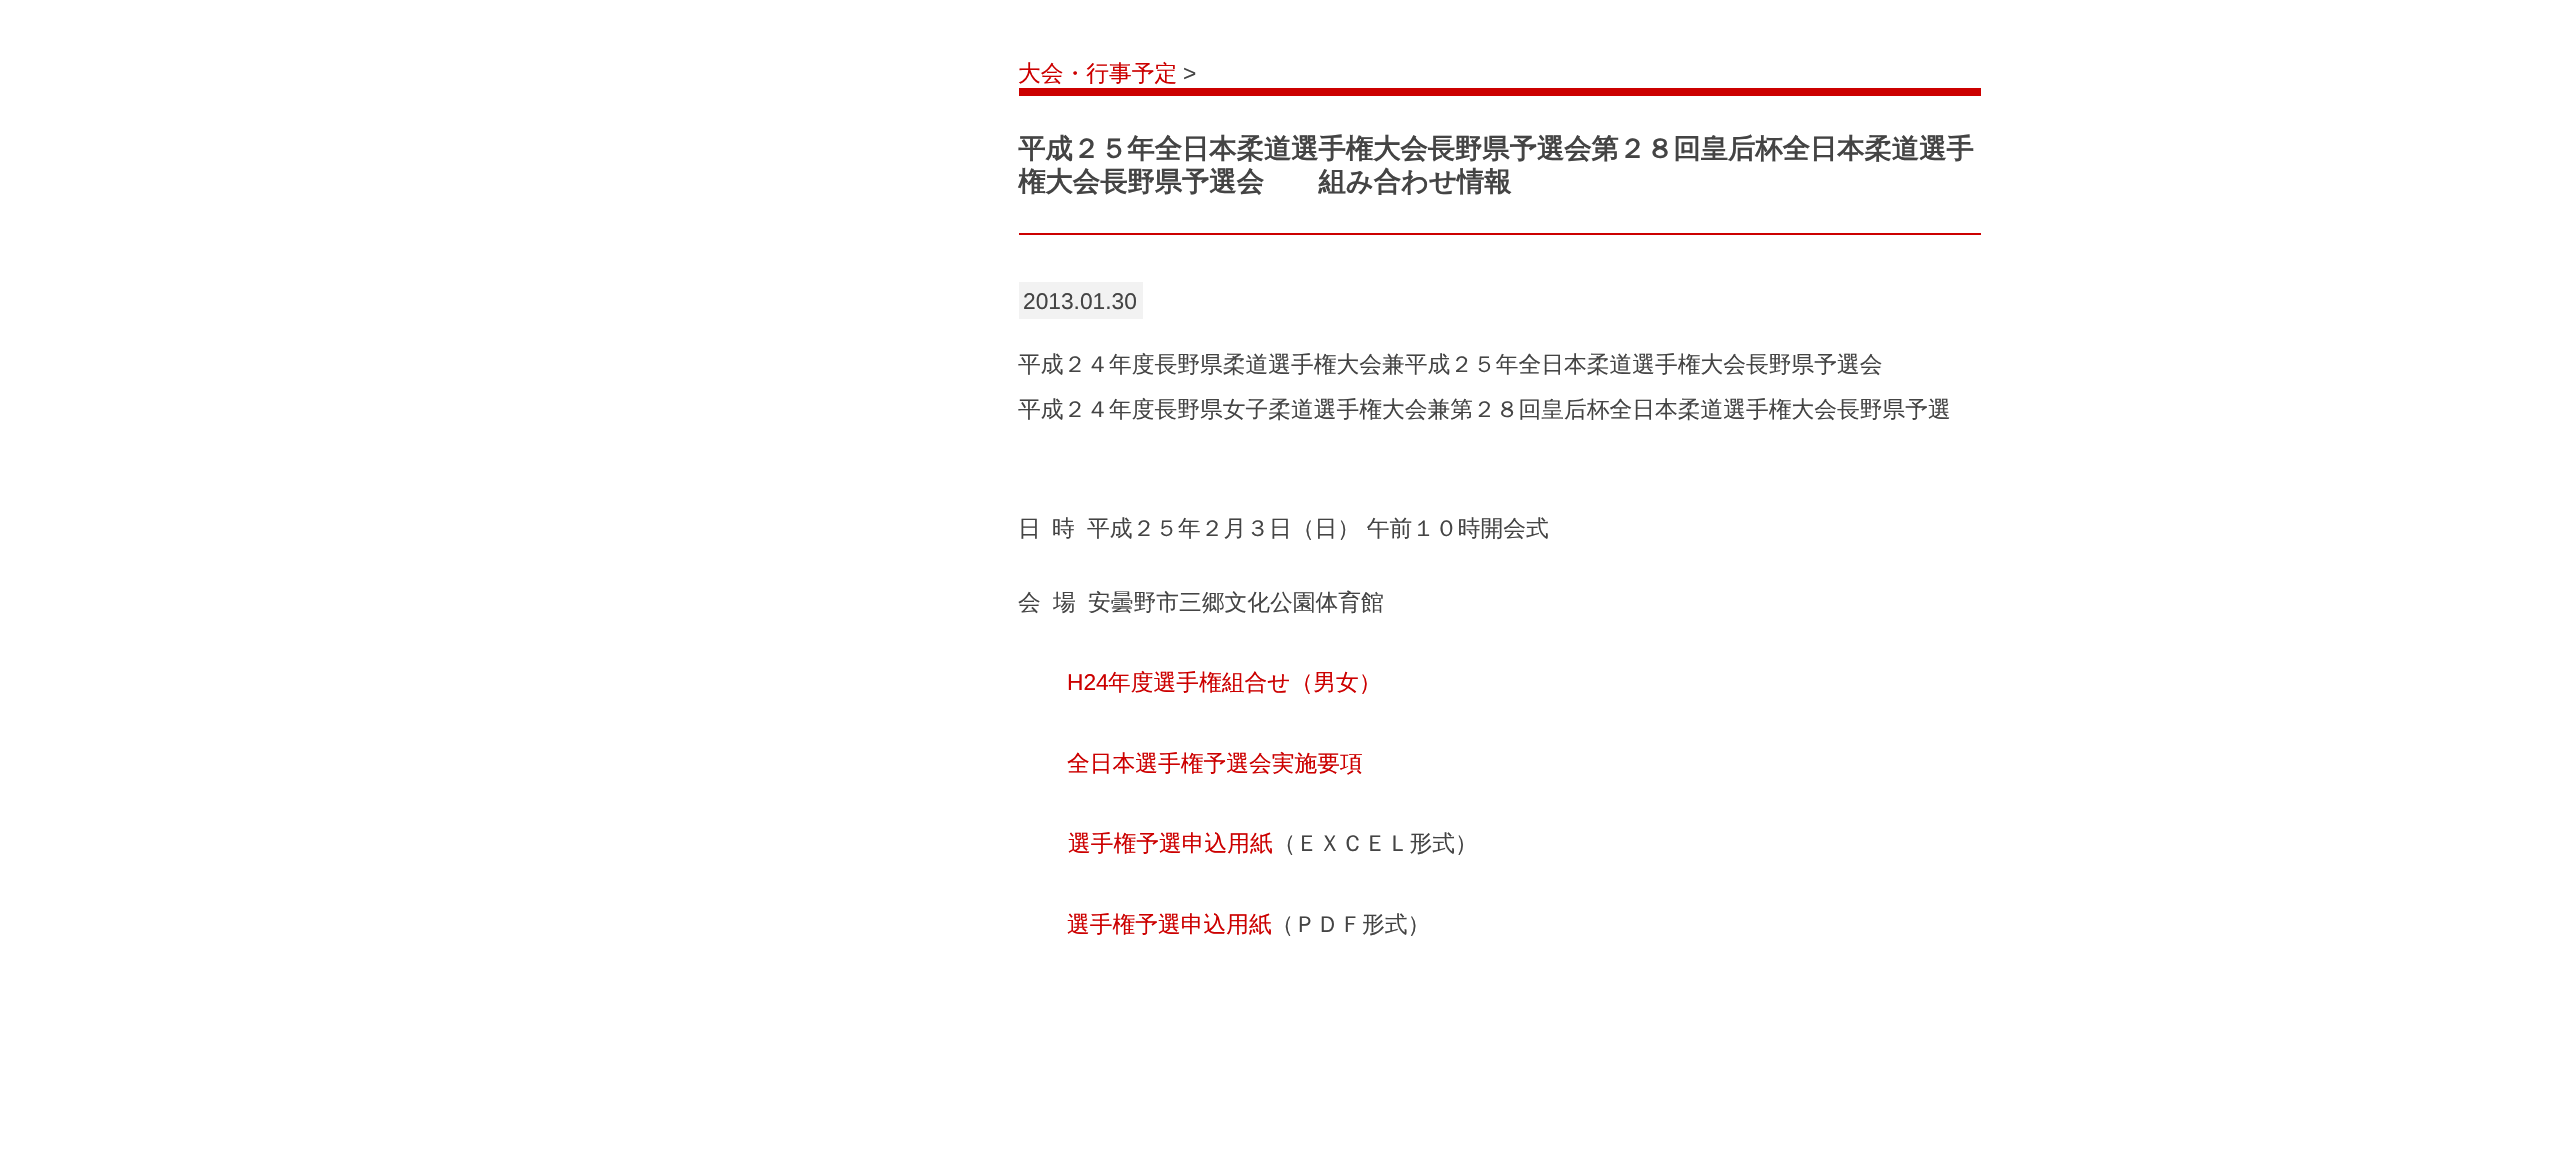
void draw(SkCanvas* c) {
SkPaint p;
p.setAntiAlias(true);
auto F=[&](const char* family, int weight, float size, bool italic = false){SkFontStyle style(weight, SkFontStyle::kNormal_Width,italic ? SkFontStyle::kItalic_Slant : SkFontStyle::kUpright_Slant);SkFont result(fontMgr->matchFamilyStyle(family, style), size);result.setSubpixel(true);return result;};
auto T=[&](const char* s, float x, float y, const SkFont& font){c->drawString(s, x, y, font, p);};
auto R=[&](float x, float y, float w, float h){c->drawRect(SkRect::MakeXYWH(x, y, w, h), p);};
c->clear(0xffffffff);
auto f1 = F("WenQuanYi Zen Hei",500,22.75);
p.setColor(0xffcc0000);
T("大会・行事予定",1018,81,f1);
auto f2 = F("Liberation Sans",400,22.75);
p.setColor(0xff444444);
T(">",1183,81,f2);
p.setColor(0xffcc0000);
R(1019,88,962,8);
R(1019,233,962,2);
auto f3 = F("WenQuanYi Zen Hei",700,27.3);
p.setColor(0xff444444);
T("平成２５年全日本柔道選手権大会長野県予選会第２８回皇后杯全日本柔道選手",1018,158,f3);
T("権大会長野県予選会　　組み合わせ情報",1018,191,f3);
p.setColor(0xfff2f2f2);
R(1019,282,124,37);
p.setColor(0xff444444);
T("2013.01.30",1023,309,f2);
T("平成２４年度長野県柔道選手権大会兼平成２５年全日本柔道選手権大会長野県予選会",1018,372,f1);
T("平成２４年度長野県女子柔道選手権大会兼第２８回皇后杯全日本柔道選手権大会長野県予選",1018,417,f1);
T("日",1018,536,f1);
T("時",1052,536,f1);
T("平成２５年２月３日（日） 午前１０時開会式",1087,536,f1);
T("会",1018,610,f1);
T("場",1053,610,f1);
T("安曇野市三郷文化公園体育館",1088,610,f1);
p.setColor(0xffcc0000);
T("H24",1067,690,f2);
T("年度選手権組合せ（男女）",1108,690,f1);
T("全日本選手権予選会実施要項",1067,771,f1);
T("選手権予選申込用紙",1068,851,f1);
p.setColor(0xff444444);
T("（ＥＸＣＥＬ形式）",1273,851,f1);
p.setColor(0xffcc0000);
T("選手権予選申込用紙",1067,932,f1);
p.setColor(0xff444444);
T("（ＰＤＦ形式）",1271,932,f1);
}
